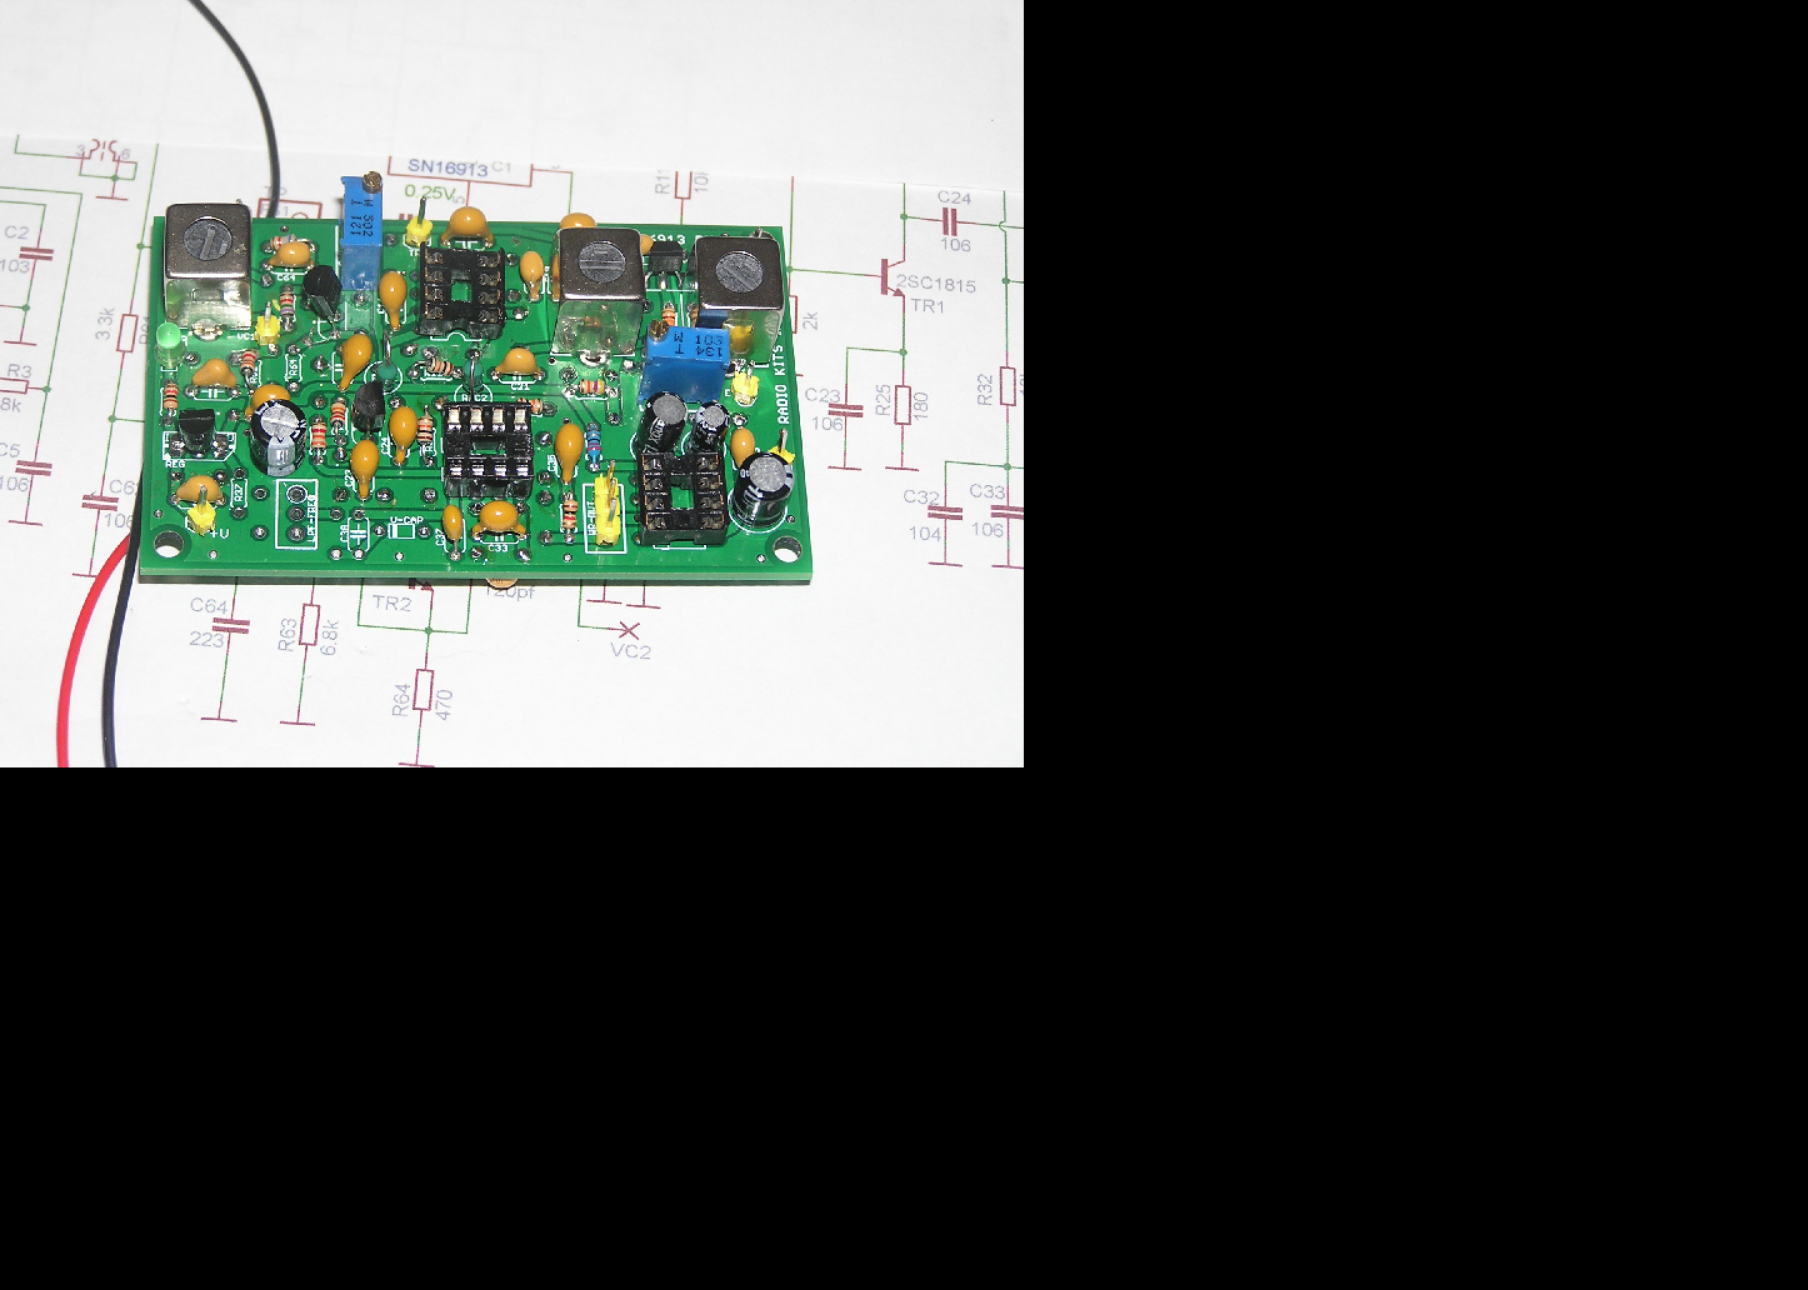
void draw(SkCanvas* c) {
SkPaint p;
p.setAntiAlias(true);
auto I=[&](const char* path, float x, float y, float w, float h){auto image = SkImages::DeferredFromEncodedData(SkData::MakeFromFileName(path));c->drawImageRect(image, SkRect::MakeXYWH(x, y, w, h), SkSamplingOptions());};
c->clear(0xff000000);
I("1.png",0,0,1024,768);
}
